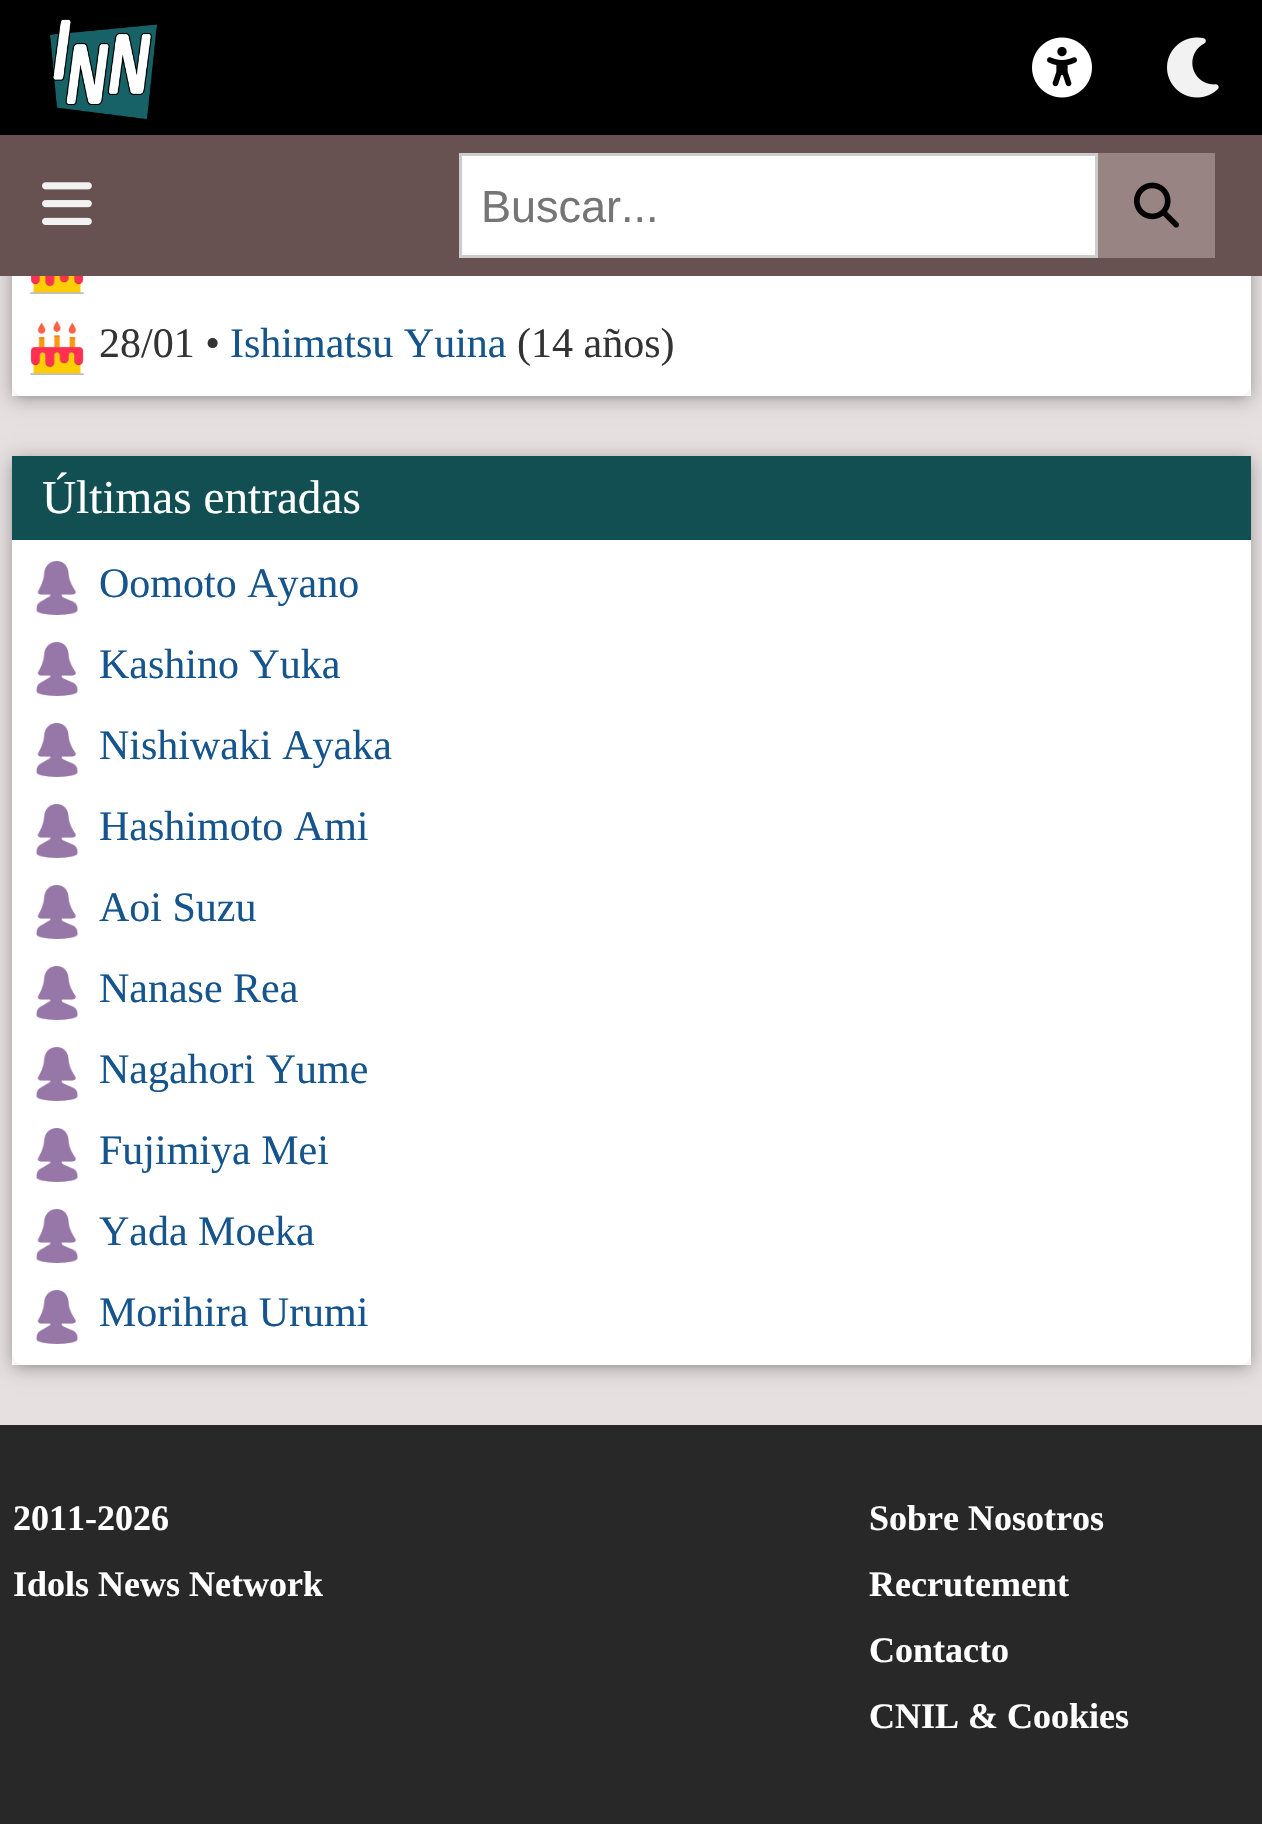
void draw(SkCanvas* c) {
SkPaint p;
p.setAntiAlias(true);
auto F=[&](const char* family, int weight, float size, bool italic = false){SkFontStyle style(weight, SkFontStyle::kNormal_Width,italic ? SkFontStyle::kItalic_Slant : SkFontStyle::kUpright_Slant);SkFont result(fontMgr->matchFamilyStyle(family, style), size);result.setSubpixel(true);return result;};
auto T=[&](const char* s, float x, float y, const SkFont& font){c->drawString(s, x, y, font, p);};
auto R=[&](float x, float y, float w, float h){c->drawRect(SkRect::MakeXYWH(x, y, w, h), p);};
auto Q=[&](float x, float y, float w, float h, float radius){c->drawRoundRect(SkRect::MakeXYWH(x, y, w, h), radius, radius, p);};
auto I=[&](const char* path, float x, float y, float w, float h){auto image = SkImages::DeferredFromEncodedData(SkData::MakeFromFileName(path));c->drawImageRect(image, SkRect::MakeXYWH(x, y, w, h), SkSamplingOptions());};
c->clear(0xffe6e0e0);
p.setColor(0x4d000000);
p.setMaskFilter(SkMaskFilter::MakeBlur(kNormal_SkBlurStyle, 9));
c->drawRect(SkRect::MakeXYWH(12,-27,1239,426),p);
p.setMaskFilter(nullptr);
p.setColor(0xffffffff);
R(12,384,1239,12);
p.setColor(0x0d000000);
p.setMaskFilter(SkMaskFilter::MakeBlur(kNormal_SkBlurStyle, 1.5));
c->drawRoundRect(SkRect::MakeXYWH(12,-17,1239,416),12,12,p);
p.setMaskFilter(nullptr);
p.setColor(0xffffffff);
Q(12,-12,1239,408,12);
p.setColor(0xff000000);
R(0,0,1262,135);
I("1.png",50,19,107,100);
I("2.png",1032,37,60,61);
I("3.png",1167,37,52,61);
p.setColor(0xff675151);
R(0,135,1262,141);
I("4.png",42,182,50,43);
p.setColor(0xffffffff);
c->drawRect(SkRect::MakeXYWH(460.5,154.5,636,102),p);
p.setStroke(true);
p.setStrokeWidth(3);
p.setColor(0xffcccccc);
c->drawRect(SkRect::MakeXYWH(460.5,154.5,636,102),p);
auto f1 = F("Liberation Sans",400,45);
p.setStroke(false);
p.setColor(0xff757575);
T("Buscar...",481,222,f1);
p.setColor(0xff998484);
R(1098,153,117,105);
I("5.png",1134,182,45,46);
I("6.png",30,276,54,18);
I("7.png",30,321,54,54);
auto f2 = F("Liberation Serif",400,42);
p.setColor(0xff333333);
T("28/01 •",99,357,f2);
p.setColor(0xff15548c);
T("Ishimatsu Yuina",230,357,f2);
p.setColor(0xff333333);
T("(14 años)",517,357,f2);
p.setColor(0x4d000000);
p.setMaskFilter(SkMaskFilter::MakeBlur(kNormal_SkBlurStyle, 9));
c->drawRect(SkRect::MakeXYWH(12,459,1239,909),p);
p.setMaskFilter(nullptr);
p.setColor(0xffffffff);
R(12,1353,1239,12);
p.setColor(0x0d000000);
p.setMaskFilter(SkMaskFilter::MakeBlur(kNormal_SkBlurStyle, 1.5));
c->drawRoundRect(SkRect::MakeXYWH(12,459,1239,909),12,12,p);
p.setMaskFilter(nullptr);
p.setColor(0xffffffff);
Q(12,456,1239,909,12);
p.setColor(0xff124f52);
R(12,456,1239,84);
auto f3 = F("Liberation Serif",400,47.25);
p.setColor(0xffffffff);
T("Últimas entradas",42,513,f3);
I("8.png",36,561,42,54);
p.setColor(0xff15548c);
T("Oomoto Ayano",99,597,f2);
I("9.png",36,642,42,54);
T("Kashino Yuka",99,678,f2);
I("8.png",36,723,42,54);
T("Nishiwaki Ayaka",99,759,f2);
I("8.png",36,804,42,54);
T("Hashimoto Ami",99,840,f2);
I("8.png",36,885,42,54);
T("Aoi Suzu",99,921,f2);
I("10.png",36,966,42,54);
T("Nanase Rea",99,1002,f2);
I("9.png",36,1047,42,54);
T("Nagahori Yume",99,1083,f2);
I("8.png",36,1128,42,54);
T("Fujimiya Mei",99,1164,f2);
I("8.png",36,1209,42,54);
T("Yada Moeka",99,1245,f2);
I("8.png",36,1290,42,54);
T("Morihira Urumi",99,1326,f2);
p.setColor(0xff292828);
R(0,1425,1262,399);
auto f4 = F("Liberation Serif",700,36);
p.setColor(0xffffffff);
T("2011-2026",13,1530,f4);
T("Idols News Network",13,1596,f4);
T("Sobre Nosotros",869,1530,f4);
T("Recrutement",869,1596,f4);
T("Contacto",869,1662,f4);
T("CNIL & Cookies",869,1728,f4);
}
